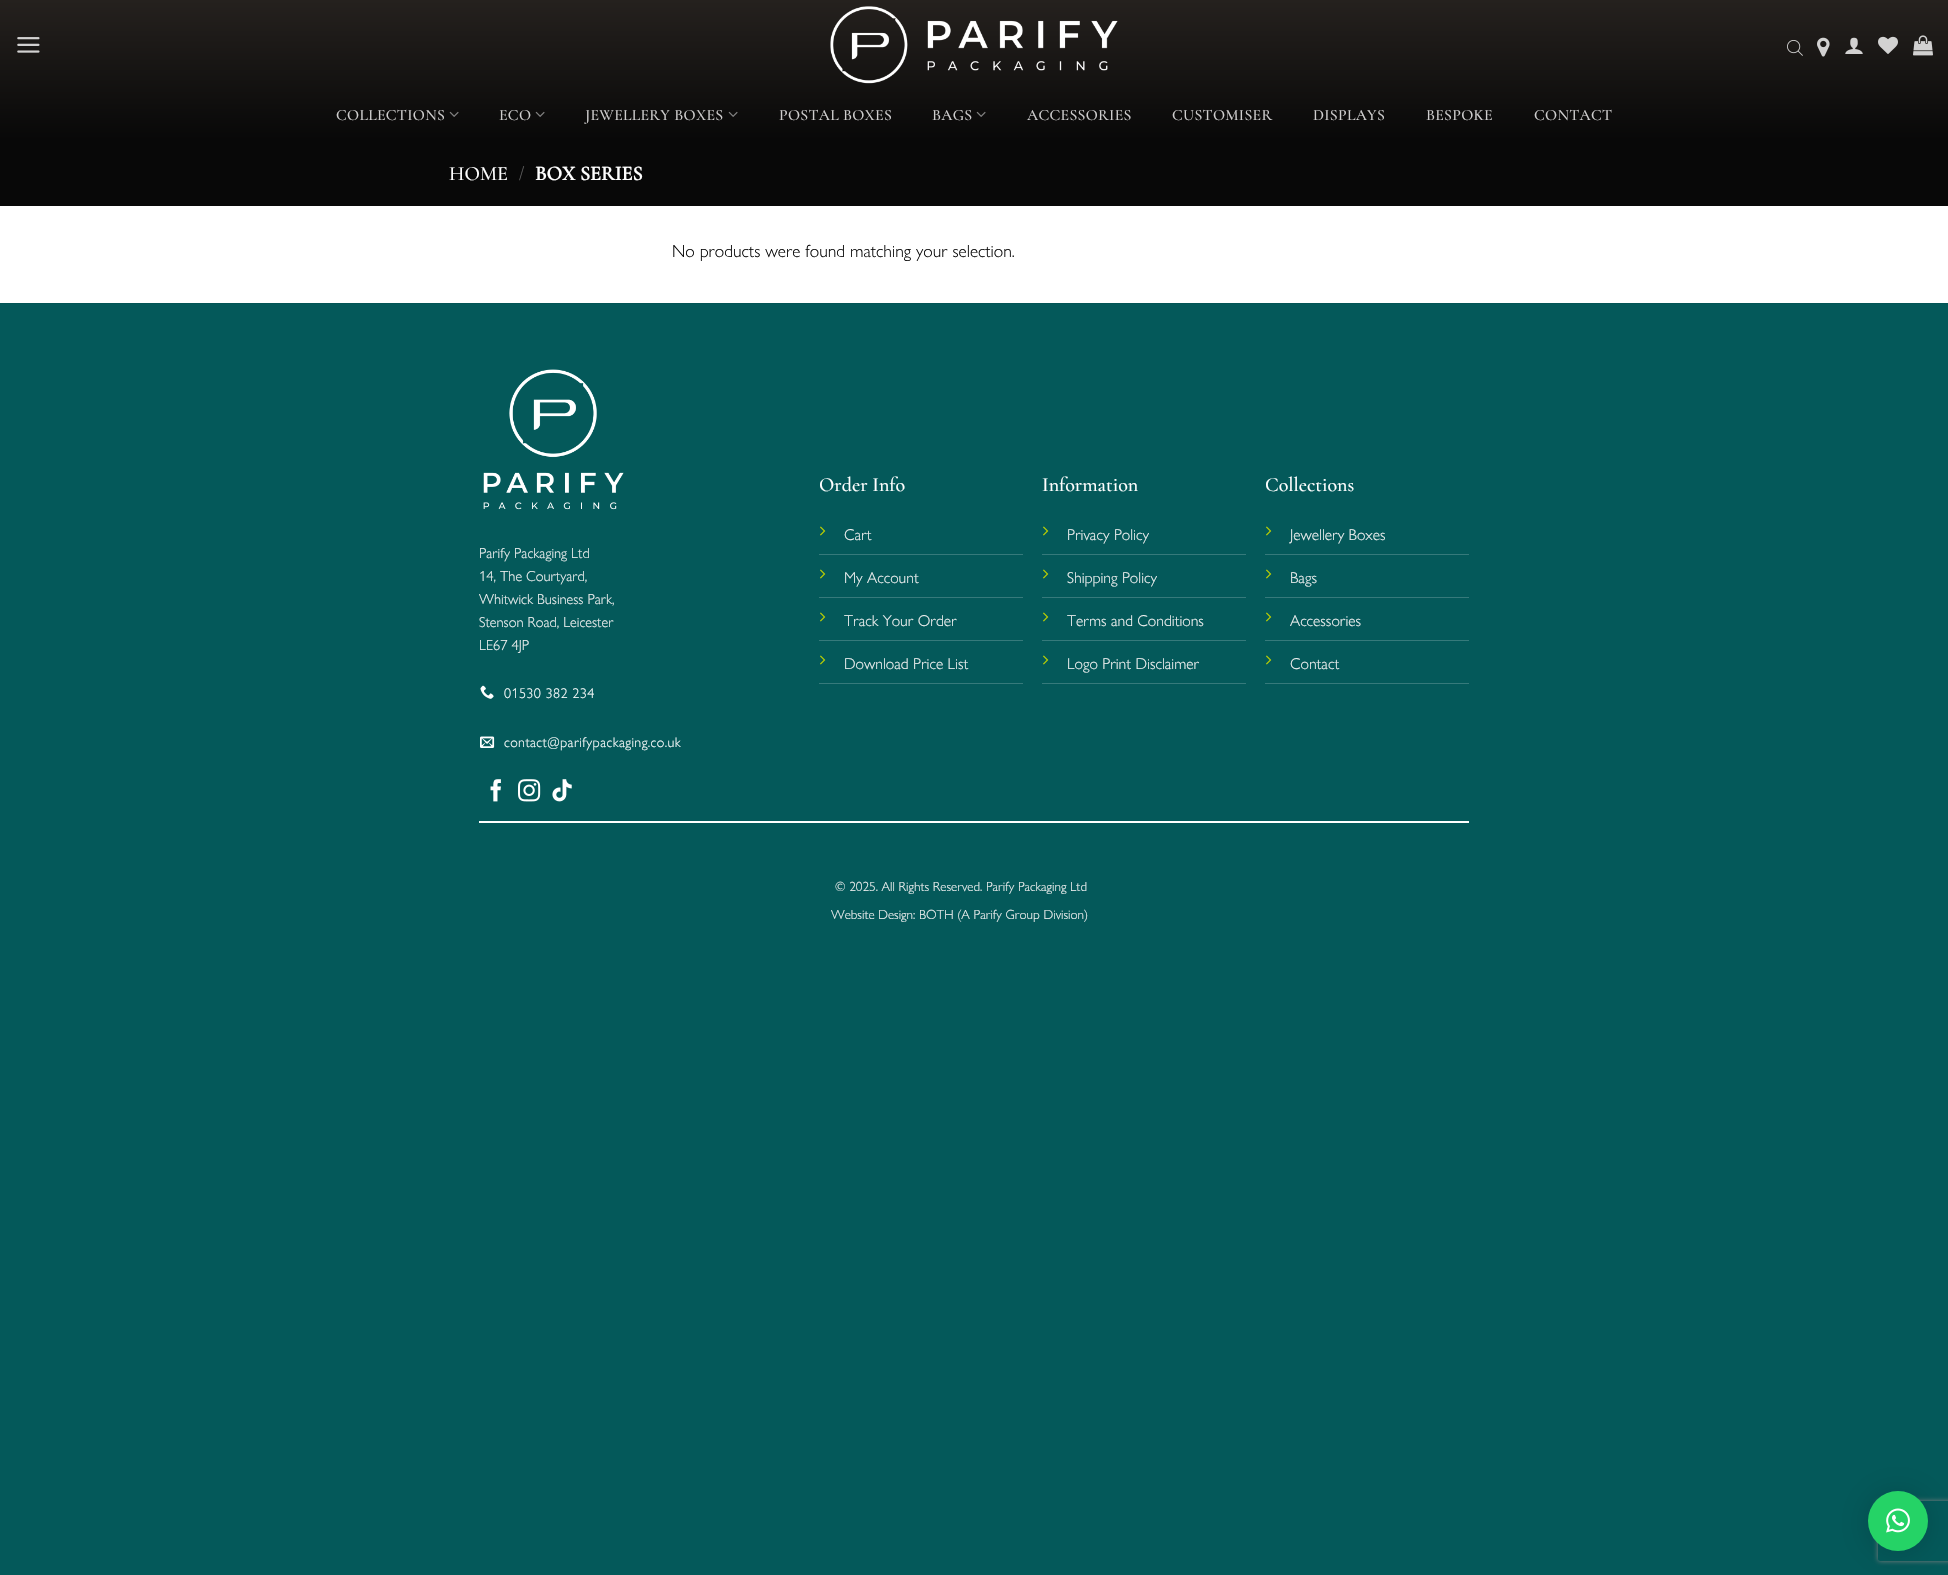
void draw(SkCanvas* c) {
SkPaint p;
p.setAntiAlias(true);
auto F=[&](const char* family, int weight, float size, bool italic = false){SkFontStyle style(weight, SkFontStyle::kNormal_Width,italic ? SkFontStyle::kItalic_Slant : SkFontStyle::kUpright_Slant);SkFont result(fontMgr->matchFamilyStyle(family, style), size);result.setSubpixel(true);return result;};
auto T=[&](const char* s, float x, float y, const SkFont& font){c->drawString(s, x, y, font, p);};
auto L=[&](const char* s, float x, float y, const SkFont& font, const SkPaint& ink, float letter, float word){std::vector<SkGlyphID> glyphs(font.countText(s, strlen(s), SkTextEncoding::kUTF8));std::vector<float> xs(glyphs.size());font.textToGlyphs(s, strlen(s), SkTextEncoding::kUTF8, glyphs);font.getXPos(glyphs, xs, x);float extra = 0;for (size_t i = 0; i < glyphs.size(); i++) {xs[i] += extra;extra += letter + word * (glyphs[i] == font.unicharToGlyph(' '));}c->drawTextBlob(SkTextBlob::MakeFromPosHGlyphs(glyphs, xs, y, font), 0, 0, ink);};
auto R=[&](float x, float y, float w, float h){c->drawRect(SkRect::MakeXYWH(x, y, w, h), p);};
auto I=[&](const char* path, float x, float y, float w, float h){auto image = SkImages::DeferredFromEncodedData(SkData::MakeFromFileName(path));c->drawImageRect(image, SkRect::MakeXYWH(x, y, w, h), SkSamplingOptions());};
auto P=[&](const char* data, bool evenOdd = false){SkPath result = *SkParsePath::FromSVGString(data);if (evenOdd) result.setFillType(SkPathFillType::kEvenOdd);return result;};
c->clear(0xff04595a);
p.setColor(0xffffffff);
R(0,206,1948,97);
{
const SkColor colors[] = {0xff25211e,0xff080808};
const float stops[] = {0,1};
const SkPoint ends[] = {{974,0}, {974,140}};
p.setShader(SkGradientShader::MakeLinear(ends, colors, stops, 2, SkTileMode::kClamp));
p.setAlpha(255);
}
R(0,0,1948,140);
I("1.png",17,37,23,16);
I("2.png",830,6,288,78);
I("3.png",1787,40,16,16);
I("4.png",1817,37,13,20);
I("5.png",1845,37,18,17);
I("6.png",1878,36,20,18);
I("7.png",1913,35,20,21);
auto f1 = F("Cormorant Garamond",300,15.75);
p.setShader(nullptr);
p.setColor(0xffcfcece);
L("COLLECTIONS",336,120,f1,p,.3,0);
I("8.png",449,111,10,6);
L("ECO",499,120,f1,p,.3,0);
I("8.png",535,111,10,6);
L("JEWELLERY BOXES",585,120,f1,p,.3,0);
I("8.png",728,111,10,6);
L("POSTAL BOXES",779,120,f1,p,.3,0);
L("BAGS",932,120,f1,p,.3,0);
I("8.png",976,111,10,6);
L("ACCESSORIES",1027,120,f1,p,.3,0);
L("CUSTOMISER",1172,120,f1,p,.3,0);
L("DISPLAYS",1313,120,f1,p,.3,0);
L("BESPOKE",1426,120,f1,p,.3,0);
L("CONTACT",1534,120,f1,p,.3,0);
p.setColor(0xff080808);
R(0,140,1948,66);
auto f2 = F("Cormorant Garamond",300,20.25);
p.setColor(0xffffffff);
T("HOME",449,180,f2);
auto f3 = F("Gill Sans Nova",300,20.25);
p.setColor(0xff5e5e5e);
T("/",519,180,f3);
auto f4 = F("Cormorant Garamond",700,20.25);
p.setColor(0xffffffff);
T("BOX SERIES",535,180,f4);
auto f5 = F("Gill Sans Nova",300,17.6);
p.setColor(0xff0a0a0a);
T("No products were found matching your selection.",672,257,f5);
p.setColor(0xff045556);
R(0,303,1948,1);
I("9.png",483,369,141,141);
auto f6 = F("Gill Sans Nova",300,14.5);
p.setColor(0xfff1f1f1);
T("Parify Packaging Ltd",479,558,f6);
T("14, The Courtyard,",479,581,f6);
T("Whitwick Business Park,",479,604,f6);
T("Stenson Road, Leicester",479,627,f6);
T("LE67 4JP",479,650,f6);
I("10.png",480,685,14,14);
auto f7 = F("Gill Sans Nova",300,14.1);
p.setColor(0xffffffff);
L("01530 382 234",504,698,f7,p,.4,0);
I("11.png",480,736,15,12);
L("contact@parifypackaging.co.uk",504,747,f7,p,.4,0);
I("12.png",490,779,11,23);
I("13.png",518,779,23,23);
I("14.png",552,779,20,23);
auto f8 = F("Cormorant Garamond",300,20);
T("Order Info",819,491,f8);
p.setColor(0xff367a7b);
R(819,554,204,1);
I("15.png",820,526,6,10);
auto f9 = F("Gill Sans Nova",300,15.75);
p.setColor(0xfff1f1f1);
T("Cart",844,540,f9);
p.setColor(0xff367a7b);
R(819,597,204,1);
I("15.png",820,569,6,10);
p.setColor(0xfff1f1f1);
T("My Account",844,583,f9);
p.setColor(0xff367a7b);
R(819,640,204,1);
I("15.png",820,612,6,10);
p.setColor(0xfff1f1f1);
T("Track Your Order",844,626,f9);
p.setColor(0xff367a7b);
R(819,683,204,1);
I("15.png",820,655,6,10);
p.setColor(0xfff1f1f1);
T("Download Price List",844,669,f9);
p.setColor(0xffffffff);
T("Information",1042,491,f8);
p.setColor(0xff367a7b);
R(1042,554,204,1);
I("15.png",1043,526,6,10);
p.setColor(0xfff1f1f1);
T("Privacy Policy",1067,540,f9);
p.setColor(0xff367a7b);
R(1042,597,204,1);
I("15.png",1043,569,6,10);
p.setColor(0xfff1f1f1);
T("Shipping Policy",1067,583,f9);
p.setColor(0xff367a7b);
R(1042,640,204,1);
I("15.png",1043,612,6,10);
p.setColor(0xfff1f1f1);
T("Terms and Conditions",1067,626,f9);
p.setColor(0xff367a7b);
R(1042,683,204,1);
I("15.png",1043,655,6,10);
p.setColor(0xfff1f1f1);
T("Logo Print Disclaimer",1067,669,f9);
p.setColor(0xffffffff);
T("Collections",1265,491,f8);
p.setColor(0xff367a7b);
R(1265,554,204,1);
I("15.png",1266,526,6,10);
p.setColor(0xfff1f1f1);
T("Jewellery Boxes",1290,540,f9);
p.setColor(0xff367a7b);
R(1265,597,204,1);
I("15.png",1266,569,6,10);
p.setColor(0xfff1f1f1);
T("Bags",1290,583,f9);
p.setColor(0xff367a7b);
R(1265,640,204,1);
I("15.png",1266,612,6,10);
p.setColor(0xfff1f1f1);
T("Accessories",1290,626,f9);
p.setColor(0xff367a7b);
R(1265,683,204,1);
I("15.png",1266,655,6,10);
p.setColor(0xfff1f1f1);
T("Contact",1290,669,f9);
p.setColor(0xffffffff);
R(479,821,990,2);
auto f10 = F("Gill Sans Nova",300,13.25);
p.setColor(0xfff1f1f1);
T("© 2025. All Rights Reserved. Parify Packaging Ltd",835,891,f10);
T("Website Design: BOTH (A Parify Group Division)",831,919,f10);
p.setColor(0x29000000);
p.setMaskFilter(SkMaskFilter::MakeBlur(kNormal_SkBlurStyle, 16));
c->drawRoundRect(SkRect::MakeXYWH(1868,1493,60,60),30,30,p);
p.setMaskFilter(nullptr);
c->save();
c->clipPath(P("M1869 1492h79v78h-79zm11 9h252c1 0 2 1 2 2v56c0 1-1 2-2 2h-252c-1 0-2-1-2-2v-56c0-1 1-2 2-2z",true),true);
p.setColor(0xff808080);
p.setMaskFilter(SkMaskFilter::MakeBlur(kNormal_SkBlurStyle, 2.5));
c->drawRoundRect(SkRect::MakeXYWH(1878,1501,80,60),2,2,p);
p.setMaskFilter(nullptr);
c->restore();
p.setColor(0xff25d366);
c->drawCircle(1898,1521,30,p);
I("16.png",1886,1508,24,25);
}
